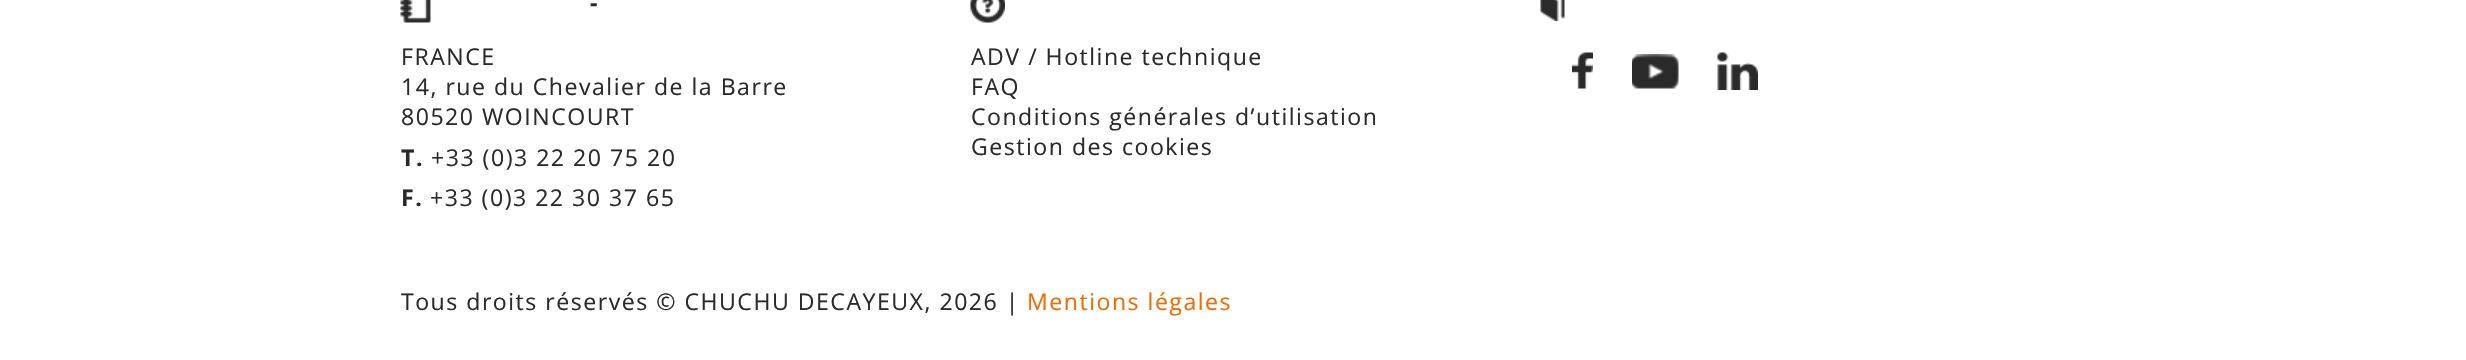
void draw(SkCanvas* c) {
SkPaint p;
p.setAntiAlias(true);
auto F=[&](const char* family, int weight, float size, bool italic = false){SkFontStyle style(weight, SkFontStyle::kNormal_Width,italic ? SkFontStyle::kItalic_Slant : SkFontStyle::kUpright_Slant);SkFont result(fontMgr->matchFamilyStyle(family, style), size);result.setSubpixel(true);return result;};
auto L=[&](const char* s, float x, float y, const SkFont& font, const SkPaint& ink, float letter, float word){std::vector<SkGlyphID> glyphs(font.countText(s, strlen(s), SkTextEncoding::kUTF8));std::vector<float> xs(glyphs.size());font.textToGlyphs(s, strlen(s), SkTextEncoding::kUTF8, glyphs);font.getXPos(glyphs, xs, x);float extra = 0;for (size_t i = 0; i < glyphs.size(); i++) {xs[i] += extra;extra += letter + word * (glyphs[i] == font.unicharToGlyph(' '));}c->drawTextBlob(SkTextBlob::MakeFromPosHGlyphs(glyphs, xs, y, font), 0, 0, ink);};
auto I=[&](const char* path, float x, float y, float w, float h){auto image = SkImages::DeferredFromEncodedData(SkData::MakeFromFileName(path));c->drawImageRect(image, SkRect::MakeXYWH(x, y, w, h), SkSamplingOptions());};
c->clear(0xffffffff);
I("1.png",400,0,31,23);
auto f1 = F("Open Sans",700,23.1);
p.setColor(0xff2a2a2a);
L("-",590,11,f1,p,1.5,0);
auto f2 = F("Open Sans",400,23.1);
L("FRANCE",401,65,f2,p,1.5,0);
L("14, rue du Chevalier de la Barre",401,95,f2,p,1.5,0);
L("80520 WOINCOURT",401,125,f2,p,1.5,0);
L("T.",401,166,f1,p,1.5,0);
L("+33 (0)3 22 20 75 20",431,166,f2,p,1.5,0);
L("F.",401,206,f1,p,1.5,0);
L("+33 (0)3 22 30 37 65",430,206,f2,p,1.5,0);
I("2.png",970,0,35,23);
L("ADV / Hotline technique",971,65,f2,p,1.5,0);
L("FAQ",971,95,f2,p,1.5,0);
L("Conditions générales d’utilisation",971,125,f2,p,1.5,0);
L("Gestion des cookies",971,155,f2,p,1.5,0);
I("3.png",1540,0,25,21);
I("4.png",1572,52,21,37);
I("5.png",1632,54,47,35);
I("6.png",1717,52,41,38);
L("Tous droits réservés © CHUCHU DECAYEUX, 2026 |",401,310,f2,p,1.5,0);
p.setColor(0xffed6c05);
L("Mentions légales",1027,310,f2,p,1.5,0);
}
